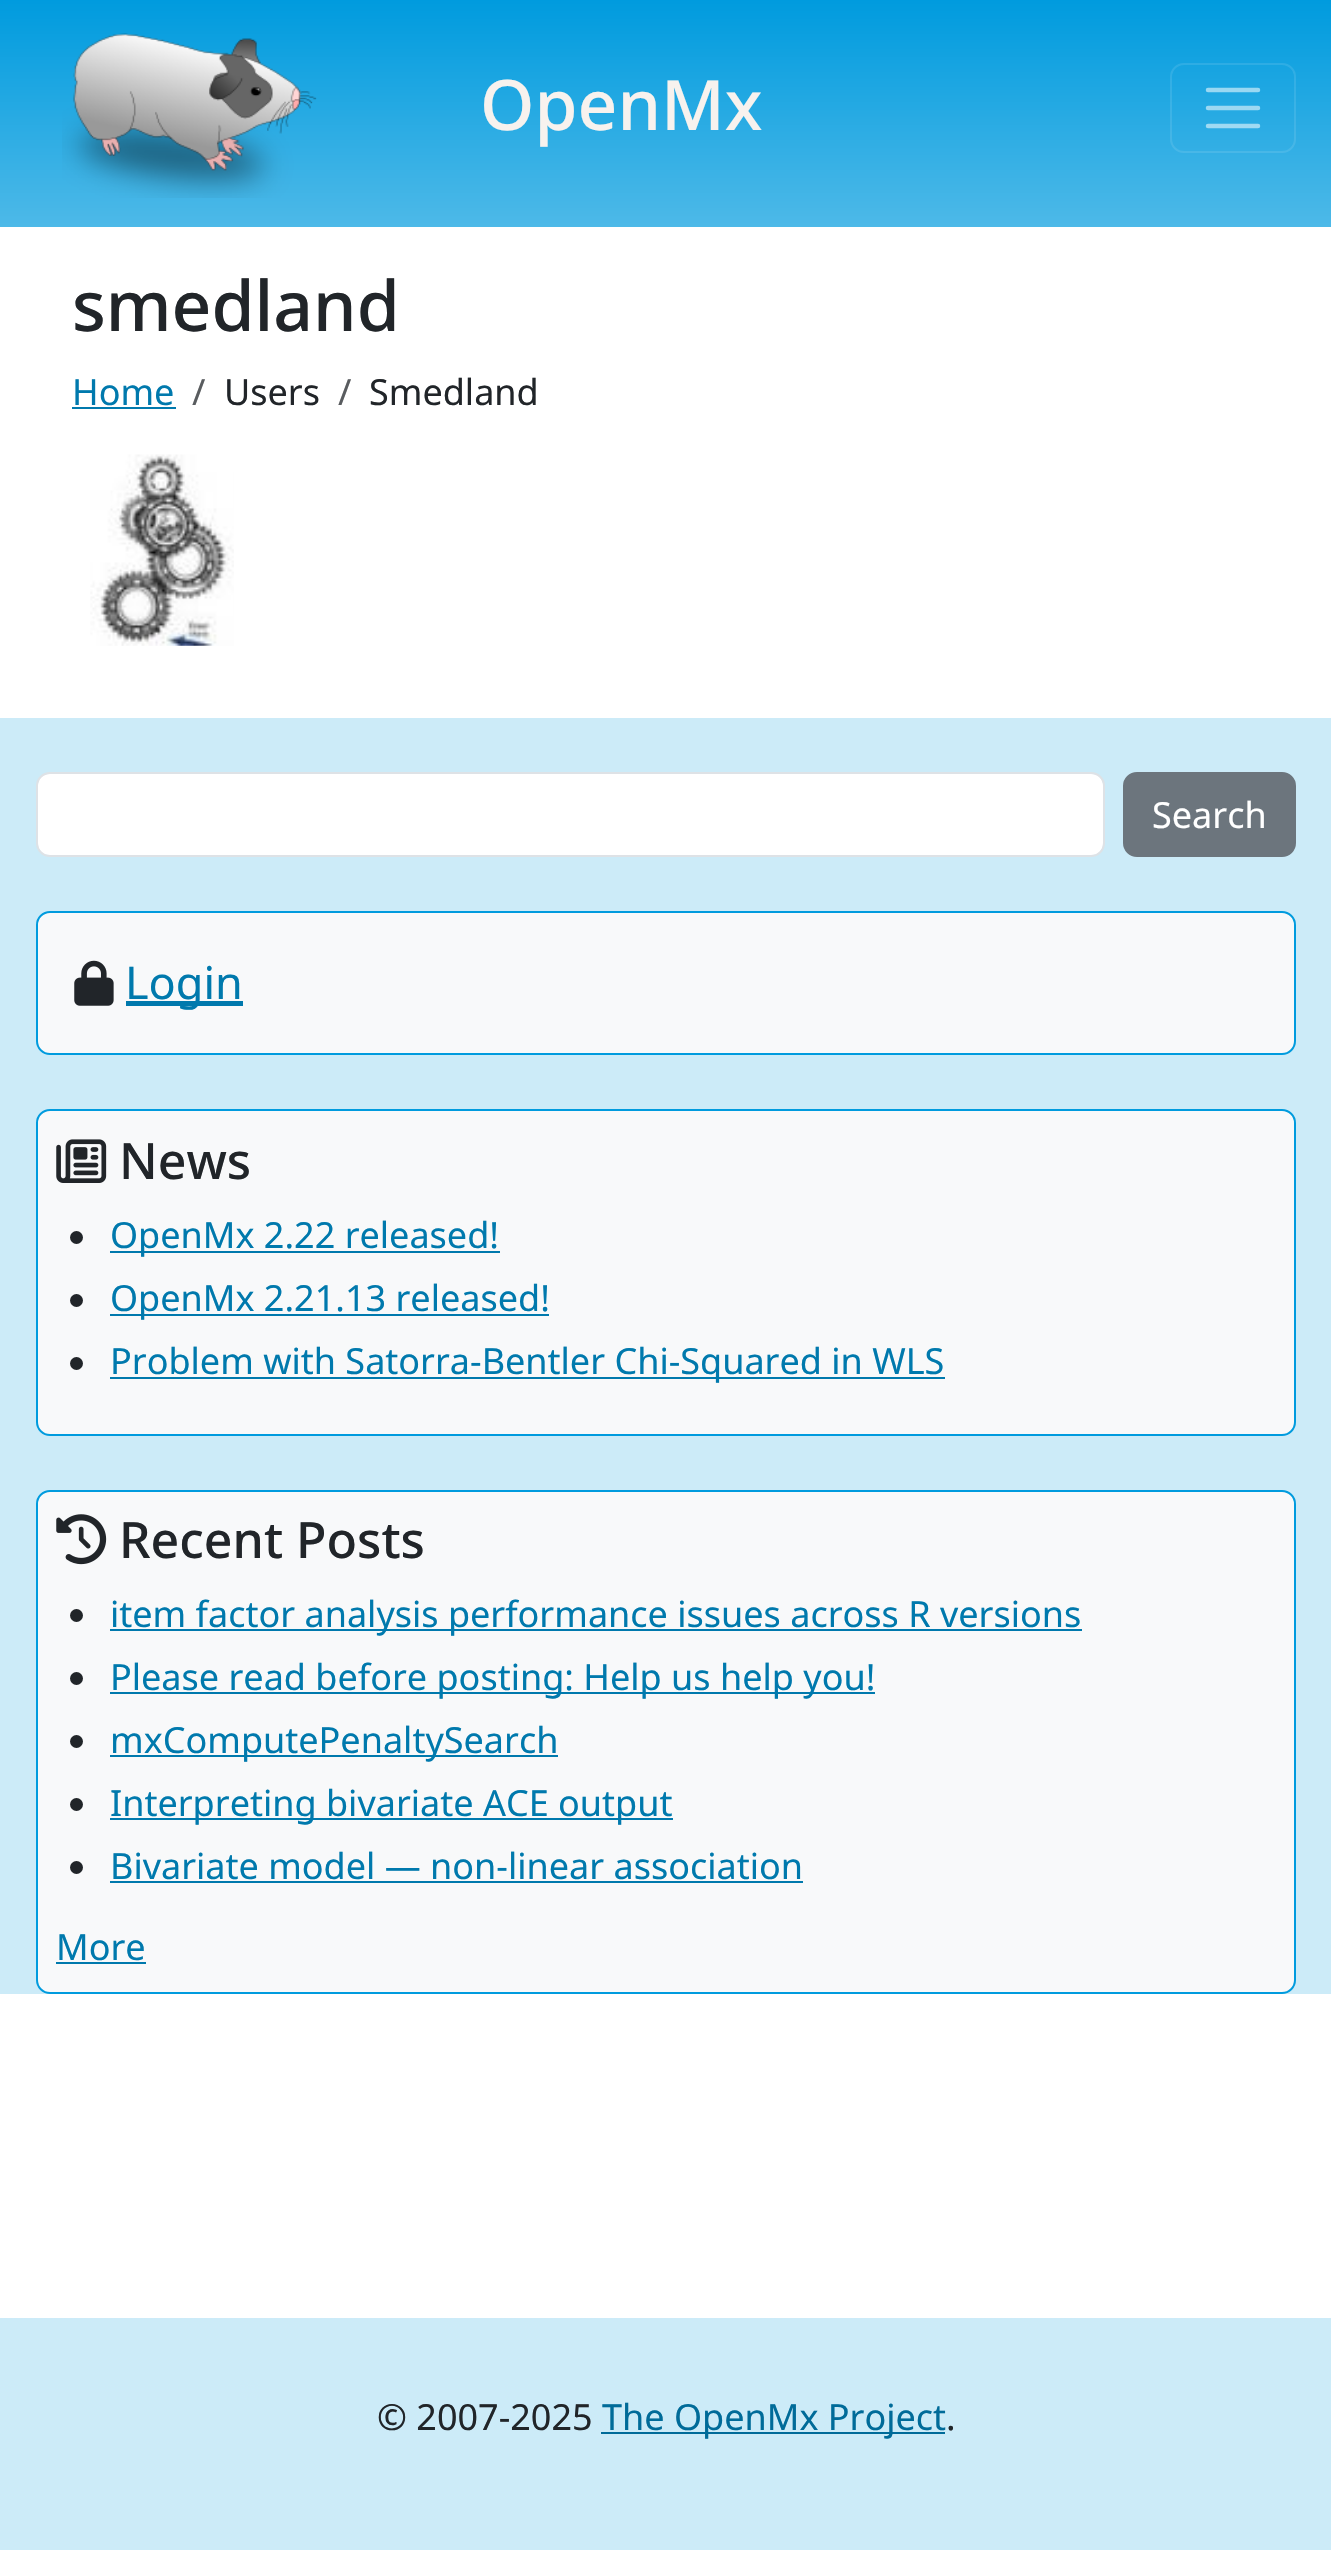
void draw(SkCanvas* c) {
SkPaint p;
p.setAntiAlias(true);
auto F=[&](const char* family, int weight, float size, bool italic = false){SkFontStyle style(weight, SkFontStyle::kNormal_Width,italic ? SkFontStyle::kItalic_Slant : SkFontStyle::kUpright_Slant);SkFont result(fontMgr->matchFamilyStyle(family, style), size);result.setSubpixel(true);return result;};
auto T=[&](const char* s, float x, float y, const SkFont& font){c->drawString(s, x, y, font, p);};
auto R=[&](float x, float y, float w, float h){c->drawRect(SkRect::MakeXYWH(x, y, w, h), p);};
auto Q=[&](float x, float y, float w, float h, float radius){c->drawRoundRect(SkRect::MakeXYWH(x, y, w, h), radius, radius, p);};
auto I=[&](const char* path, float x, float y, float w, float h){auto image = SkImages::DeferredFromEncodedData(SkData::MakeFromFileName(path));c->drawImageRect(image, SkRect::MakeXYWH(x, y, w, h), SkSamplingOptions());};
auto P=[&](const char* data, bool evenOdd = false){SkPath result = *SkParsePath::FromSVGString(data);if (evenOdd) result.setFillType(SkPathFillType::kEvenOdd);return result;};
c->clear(0xffffffff);
{
const SkColor colors[] = {0xff009bde,0xff4db9e8};
const float stops[] = {0,1};
const SkPoint ends[] = {{666,0}, {666,227}};
p.setShader(SkGradientShader::MakeLinear(ends, colors, stops, 2, SkTileMode::kClamp));
p.setAlpha(255);
}
R(0,0,1331,227);
I("1.png",62,33,255,165);
auto f1 = F("Noto Sans",500,69.5);
p.setShader(nullptr);
p.setColor(0xfff7f2ee);
T("OpenMx",480,130,f1);
p.setStroke(true);
p.setStrokeWidth(2);
p.setColor(0x1affffff);
c->drawRoundRect(SkRect::MakeXYWH(1171,64,124,88),13,13,p);
p.setStrokeWidth(4.5);
p.setStrokeCap(SkPaint::kRound_Cap);
p.setColor(0x8cffffff);
c->drawPath(P("M1208 90h50m-50 18h50m-50 18h50"),p);
p.setStroke(false);
p.setColor(0xff212529);
T("smedland",72,331,f1);
auto f2 = F("Noto Sans",400,36);
p.setColor(0xff0079ad);
T("Home",72,405,f2);
R(72,407,104,2);
p.setColor(0xff595c5f);
T("/",192,405,f2);
p.setColor(0xff212529);
T("Users",224,405,f2);
p.setColor(0xff595c5f);
T("/",338,405,f2);
p.setColor(0xff212529);
T("Smedland",369,405,f2);
I("2.png",90,454,144,192);
p.setColor(0xffccebf8);
R(0,718,1331,1276);
p.setColor(0xffffffff);
Q(38,774,1065,81,11);
p.setStroke(true);
p.setStrokeWidth(2);
p.setStrokeCap(SkPaint::kButt_Cap);
p.setColor(0xffdee2e6);
c->drawRoundRect(SkRect::MakeXYWH(37,773,1067,83),13,13,p);
p.setStroke(false);
p.setColor(0xff6c757d);
c->drawRoundRect(SkRect::MakeXYWH(1124,773,171,83),13,13,p);
p.setStroke(true);
c->drawRoundRect(SkRect::MakeXYWH(1124,773,171,83),13,13,p);
p.setStroke(false);
p.setColor(0xffffffff);
T("Search",1152,828,f2);
p.setColor(0xfff8f9fa);
c->drawRoundRect(SkRect::MakeXYWH(37,912,1258,142),13,13,p);
p.setStroke(true);
p.setColor(0xff009bde);
c->drawRoundRect(SkRect::MakeXYWH(37,912,1258,142),13,13,p);
I("3.png",74,960,40,46);
p.setStroke(false);
p.setColor(0xff0079ad);
R(126,1001,117,5);
auto f3 = F("Noto Sans",400,45);
T("Login",125,999,f3);
p.setColor(0xfff8f9fa);
c->drawRoundRect(SkRect::MakeXYWH(37,1110,1258,325),13,13,p);
p.setStroke(true);
p.setColor(0xff009bde);
c->drawRoundRect(SkRect::MakeXYWH(37,1110,1258,325),13,13,p);
I("4.png",56,1139,51,44);
auto f4 = F("Noto Sans",500,50);
p.setStroke(false);
p.setColor(0xff212529);
T("News",119,1179,f4);
c->drawCircle(76.5,1237.5,6.5,p);
p.setColor(0xff0079ad);
R(110,1251,390,2);
T("OpenMx 2.22 released!",110,1248,f2);
p.setColor(0xff212529);
c->drawCircle(76.5,1300.5,6.5,p);
p.setColor(0xff0079ad);
R(110,1314,439,2);
T("OpenMx 2.21.13 released!",110,1311,f2);
p.setColor(0xff212529);
c->drawCircle(76.5,1363.5,6.5,p);
p.setColor(0xff0079ad);
R(110,1377,835,2);
T("Problem with Satorra-Bentler Chi-Squared in WLS",110,1374,f2);
p.setColor(0xfff8f9fa);
c->drawRoundRect(SkRect::MakeXYWH(37,1491,1258,502),13,13,p);
p.setStroke(true);
p.setColor(0xff009bde);
c->drawRoundRect(SkRect::MakeXYWH(37,1491,1258,502),13,13,p);
I("5.png",56,1514,51,51);
p.setStroke(false);
p.setColor(0xff212529);
T("Recent Posts",119,1558,f4);
c->drawCircle(76.5,1615.5,6.5,p);
p.setColor(0xff0079ad);
R(110,1629,972,2);
T("item factor analysis performance issues across R versions",110,1627,f2);
p.setColor(0xff212529);
c->drawCircle(76.5,1678.5,6.5,p);
p.setColor(0xff0079ad);
R(110,1692,765,2);
T("Please read before posting: Help us help you!",110,1690,f2);
p.setColor(0xff212529);
c->drawCircle(76.5,1741.5,6.5,p);
p.setColor(0xff0079ad);
R(110,1755,448,2);
T("mxComputePenaltySearch",110,1753,f2);
p.setColor(0xff212529);
c->drawCircle(76.5,1804.5,6.5,p);
p.setColor(0xff0079ad);
R(110,1818,563,2);
T("Interpreting bivariate ACE output",110,1816,f2);
p.setColor(0xff212529);
c->drawCircle(76.5,1867.5,6.5,p);
p.setColor(0xff0079ad);
T("Bivariate model — non-linear association",110,1879,f2);
R(110,1881,693,2);
T("More",56,1960,f2);
R(56,1962,90,2);
p.setColor(0xffccebf8);
R(0,2318,1331,232);
p.setColor(0xff212529);
T("© 2007-2025",377,2430,f2);
p.setColor(0xff006b99);
R(601,2432,344,2);
T("The OpenMx Project",602,2430,f2);
p.setColor(0xff212529);
T(".",946,2430,f2);
}
